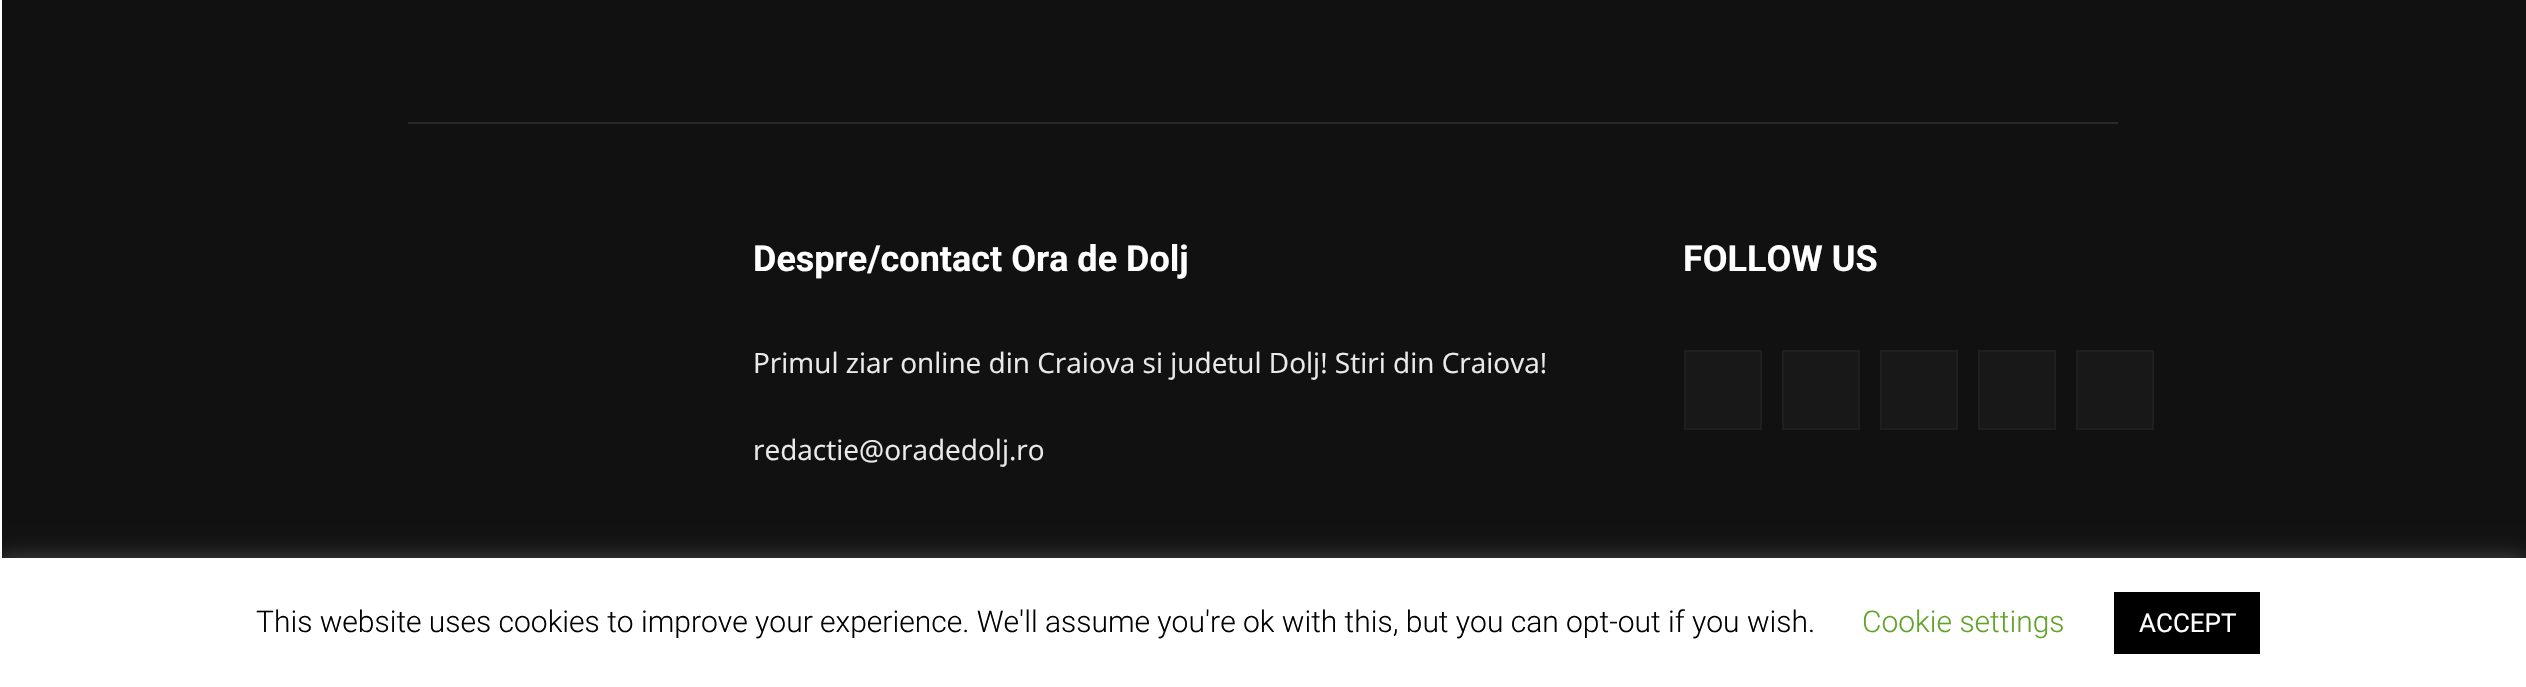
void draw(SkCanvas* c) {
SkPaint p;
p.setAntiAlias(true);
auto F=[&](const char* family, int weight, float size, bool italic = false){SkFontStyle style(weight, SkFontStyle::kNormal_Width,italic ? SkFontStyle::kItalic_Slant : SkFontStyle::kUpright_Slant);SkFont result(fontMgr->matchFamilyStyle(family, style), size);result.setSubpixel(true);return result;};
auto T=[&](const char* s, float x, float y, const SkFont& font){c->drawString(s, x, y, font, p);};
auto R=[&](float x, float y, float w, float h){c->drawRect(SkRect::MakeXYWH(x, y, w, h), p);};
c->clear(0xffffffff);
p.setColor(0xff111111);
R(2,0,2524,558);
p.setColor(0xff292929);
R(408,122,1710,2);
auto f1 = F("Roboto",700,36);
p.setColor(0xffffffff);
T("Despre/contact Ora de Dolj",753,271,f1);
auto f2 = F("Open Sans",400,28);
p.setColor(0xffeaeaea);
T("Primul ziar online din Craiova si judetul Dolj! Stiri din Craiova!",753,373,f2);
T("redactie@oradedolj.ro",753,460,f2);
p.setColor(0xffffffff);
T("FOLLOW US",1683,271,f1);
p.setColor(0xff181818);
c->drawRect(SkRect::MakeXYWH(1685,351,76,78),p);
p.setStroke(true);
p.setStrokeWidth(2);
p.setColor(0xff1f1f1f);
c->drawRect(SkRect::MakeXYWH(1685,351,76,78),p);
p.setStroke(false);
p.setColor(0xff181818);
c->drawRect(SkRect::MakeXYWH(1783,351,76,78),p);
p.setStroke(true);
p.setColor(0xff1f1f1f);
c->drawRect(SkRect::MakeXYWH(1783,351,76,78),p);
p.setStroke(false);
p.setColor(0xff181818);
c->drawRect(SkRect::MakeXYWH(1881,351,76,78),p);
p.setStroke(true);
p.setColor(0xff1f1f1f);
c->drawRect(SkRect::MakeXYWH(1881,351,76,78),p);
p.setStroke(false);
p.setColor(0xff181818);
c->drawRect(SkRect::MakeXYWH(1979,351,76,78),p);
p.setStroke(true);
p.setColor(0xff1f1f1f);
c->drawRect(SkRect::MakeXYWH(1979,351,76,78),p);
p.setStroke(false);
p.setColor(0xff181818);
c->drawRect(SkRect::MakeXYWH(2077,351,76,78),p);
p.setStroke(true);
p.setColor(0xff1f1f1f);
c->drawRect(SkRect::MakeXYWH(2077,351,76,78),p);
p.setStroke(false);
p.setColor(0x4dacabab);
p.setMaskFilter(SkMaskFilter::MakeBlur(kNormal_SkBlurStyle, 10));
c->drawRect(SkRect::MakeXYWH(0,556,2526,130),p);
p.setMaskFilter(nullptr);
p.setColor(0xffffffff);
R(0,558,2526,129);
auto f3 = F("Roboto",300,30);
p.setColor(0xff000000);
T("This website uses cookies to improve your experience. We'll assume you're ok with this, but you can opt-out if you wish.",256,632,f3);
p.setColor(0xff62a329);
T("Cookie settings",1862,632,f3);
p.setColor(0xff000000);
R(2114,592,146,62);
auto f4 = F("Roboto",400,26);
p.setColor(0xffffffff);
T("ACCEPT",2139,632,f4);
}
